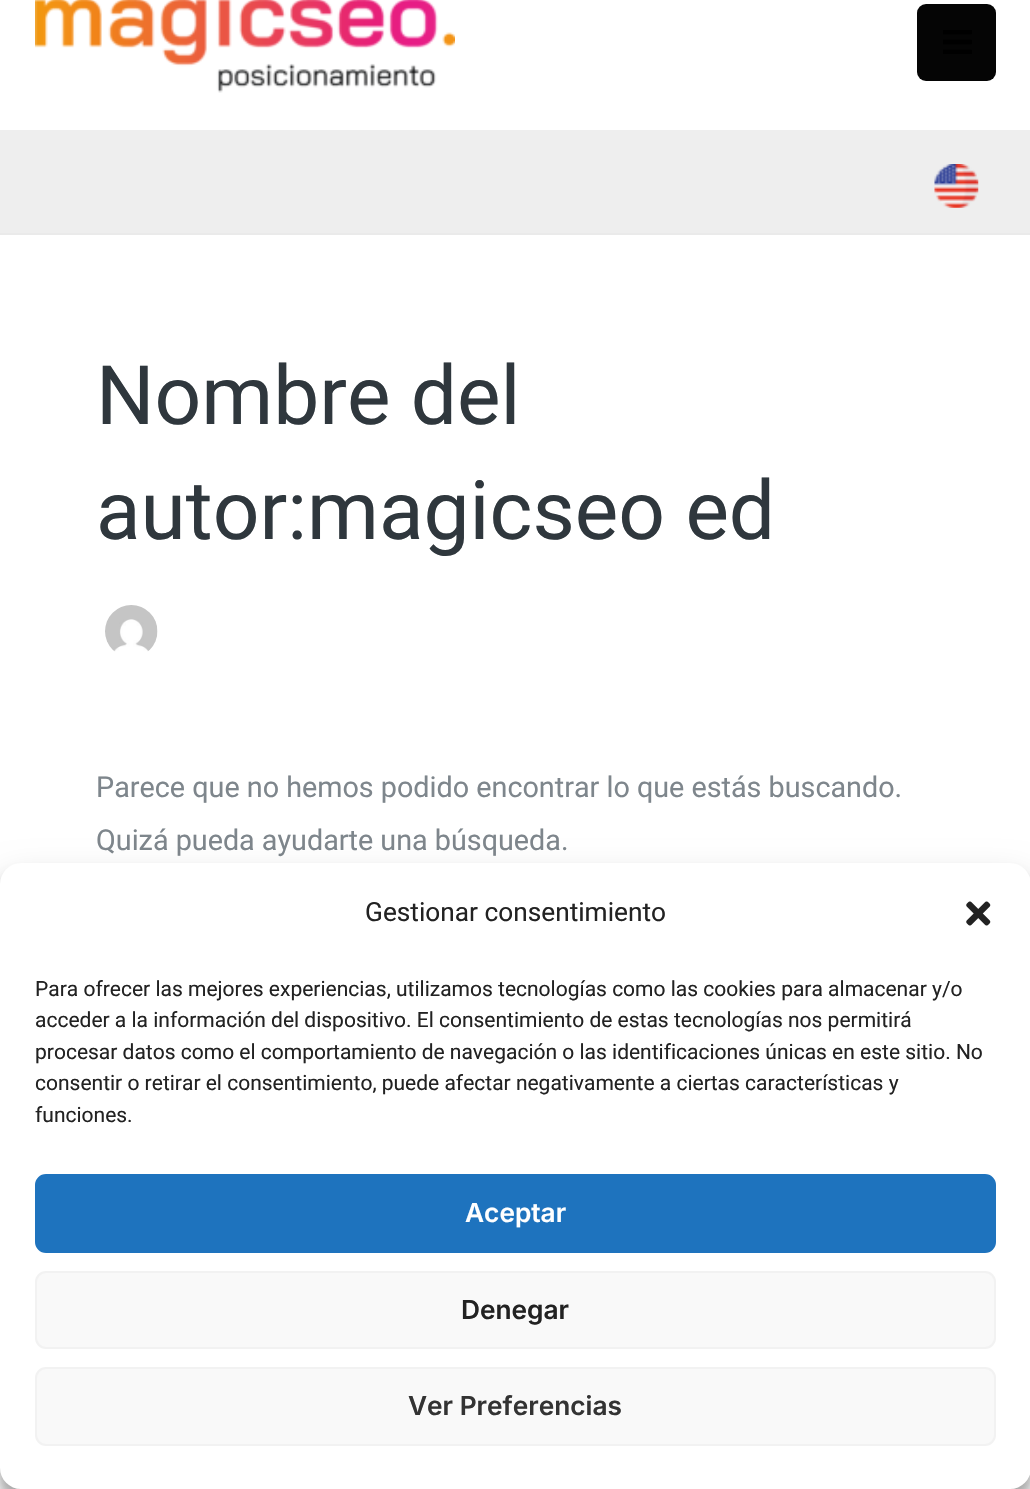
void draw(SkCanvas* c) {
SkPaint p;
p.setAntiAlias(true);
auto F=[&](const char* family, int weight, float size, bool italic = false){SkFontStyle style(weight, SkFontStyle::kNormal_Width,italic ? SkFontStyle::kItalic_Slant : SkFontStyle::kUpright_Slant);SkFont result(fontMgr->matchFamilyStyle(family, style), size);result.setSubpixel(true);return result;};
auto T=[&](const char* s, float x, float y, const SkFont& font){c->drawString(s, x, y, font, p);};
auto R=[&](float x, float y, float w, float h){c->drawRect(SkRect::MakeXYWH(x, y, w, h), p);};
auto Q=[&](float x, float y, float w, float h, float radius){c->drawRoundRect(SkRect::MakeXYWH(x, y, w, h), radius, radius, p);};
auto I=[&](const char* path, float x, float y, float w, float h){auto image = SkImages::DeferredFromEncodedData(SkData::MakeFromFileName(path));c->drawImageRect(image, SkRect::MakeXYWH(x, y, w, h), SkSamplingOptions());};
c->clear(0xffffffff);
I("1.png",35,0,420,93);
p.setColor(0xff050505);
Q(917,4,79,77,9);
I("2.png",943,30,29,24);
p.setColor(0xffeeeeee);
R(0,130,1030,103);
p.setColor(0xffeaeaea);
R(0,233,1030,2);
I("3.png",934,164,45,44);
auto f1 = F("Roboto",400,82);
p.setColor(0xff2f373d);
T("Nombre del",96,424,f1);
T("autor:magicseo ed",96,539,f1);
I("4.png",105,605,53,47);
auto f2 = F("Roboto",400,28.75);
p.setColor(0xff7e868c);
T("Parece que no hemos podido encontrar lo que estás buscando.",96,797,f2);
T("Quizá pueda ayudarte una búsqueda.",96,850,f2);
p.setColor(0x3b000000);
p.setMaskFilter(SkMaskFilter::MakeBlur(kNormal_SkBlurStyle, 5));
c->drawRoundRect(SkRect::MakeXYWH(0,873,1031,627),21,21,p);
p.setMaskFilter(nullptr);
p.setColor(0x30000000);
p.setMaskFilter(SkMaskFilter::MakeBlur(kNormal_SkBlurStyle, 17.5));
c->drawRoundRect(SkRect::MakeXYWH(0,880,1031,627),21,21,p);
p.setMaskFilter(nullptr);
p.setColor(0xffffffff);
Q(0,863,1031,626,21);
auto f3 = F("Roboto",400,26.25);
p.setColor(0xff222222);
T("Gestionar consentimiento",365,921,f3);
I("5.png",966,901,25,25);
auto f4 = F("Roboto",400,21);
T("Para ofrecer las mejores experiencias, utilizamos tecnologías como las cookies para almacenar y/o",35,996,f4);
T("acceder a la información del dispositivo. El consentimiento de estas tecnologías nos permitirá",35,1027,f4);
T("procesar datos como el comportamiento de navegación o las identificaciones únicas en este sitio. No",35,1059,f4);
T("consentir o retirar el consentimiento, puede afectar negativamente a ciertas características y",35,1090,f4);
T("funciones.",35,1122,f4);
p.setColor(0xff1e73be);
c->drawRoundRect(SkRect::MakeXYWH(36,1175,959,77),10,10,p);
p.setStroke(true);
p.setStrokeWidth(2);
c->drawRoundRect(SkRect::MakeXYWH(36,1175,959,77),10,10,p);
auto f5 = F("Inter",600,26.25);
p.setStroke(false);
p.setColor(0xffffffff);
T("Aceptar",465,1222,f5);
p.setColor(0xfff9f9f9);
c->drawRoundRect(SkRect::MakeXYWH(36,1272,959,76),10,10,p);
p.setStroke(true);
p.setColor(0xfff2f2f2);
c->drawRoundRect(SkRect::MakeXYWH(36,1272,959,76),10,10,p);
p.setStroke(false);
p.setColor(0xff222222);
T("Denegar",461,1319,f5);
p.setColor(0xfff9f9f9);
c->drawRoundRect(SkRect::MakeXYWH(36,1368,959,77),10,10,p);
p.setStroke(true);
p.setColor(0xfff2f2f2);
c->drawRoundRect(SkRect::MakeXYWH(36,1368,959,77),10,10,p);
p.setStroke(false);
p.setColor(0xff333333);
T("Ver Preferencias",408,1415,f5);
}
